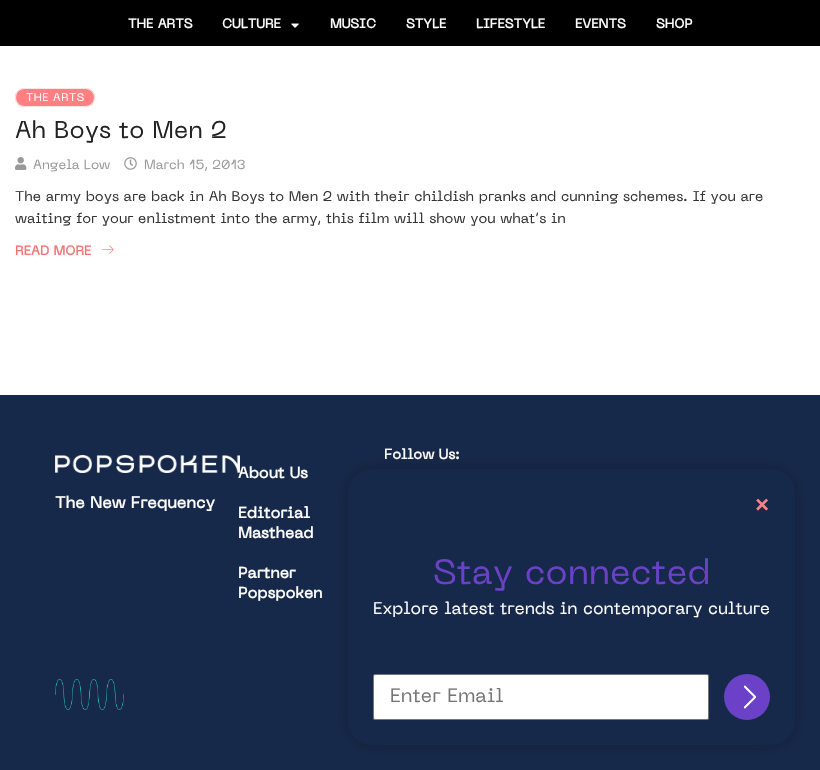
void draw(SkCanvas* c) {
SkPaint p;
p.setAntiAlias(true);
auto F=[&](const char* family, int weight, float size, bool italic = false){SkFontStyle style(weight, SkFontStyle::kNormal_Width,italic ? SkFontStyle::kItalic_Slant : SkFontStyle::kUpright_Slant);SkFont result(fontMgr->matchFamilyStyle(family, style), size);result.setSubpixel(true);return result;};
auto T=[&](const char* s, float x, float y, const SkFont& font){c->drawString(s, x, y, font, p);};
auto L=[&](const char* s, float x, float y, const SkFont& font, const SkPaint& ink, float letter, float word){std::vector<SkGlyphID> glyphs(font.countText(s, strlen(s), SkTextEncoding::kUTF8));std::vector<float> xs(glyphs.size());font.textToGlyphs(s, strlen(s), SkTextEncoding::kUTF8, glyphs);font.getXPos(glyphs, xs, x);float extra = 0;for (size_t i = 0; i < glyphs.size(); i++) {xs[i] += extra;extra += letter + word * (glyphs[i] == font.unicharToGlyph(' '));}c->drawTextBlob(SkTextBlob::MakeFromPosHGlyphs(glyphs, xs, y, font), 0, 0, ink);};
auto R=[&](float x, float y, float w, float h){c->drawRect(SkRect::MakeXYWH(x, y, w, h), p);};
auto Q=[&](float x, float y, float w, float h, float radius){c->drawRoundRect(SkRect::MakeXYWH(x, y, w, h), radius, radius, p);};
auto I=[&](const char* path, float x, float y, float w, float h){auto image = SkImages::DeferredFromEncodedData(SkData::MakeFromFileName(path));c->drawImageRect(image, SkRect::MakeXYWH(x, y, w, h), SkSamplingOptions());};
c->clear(0xffffffff);
p.setColor(0xff000000);
R(0,0,820,46);
auto f1 = F("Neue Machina",700,13);
p.setColor(0xffffffff);
T("THE ARTS",128,28,f1);
T("CULTURE",222,28,f1);
I("1.png",291,23,8,5);
T("MUSIC",330,28,f1);
T("STYLE",406,28,f1);
T("LIFESTYLE",476,28,f1);
T("EVENTS",575,28,f1);
T("SHOP",656,28,f1);
p.setColor(0xffff7f82);
Q(15,88,80,19,9.5);
p.setStroke(true);
p.setStrokeWidth(1);
p.setColor(0xccffffff);
c->drawRoundRect(SkRect::MakeXYWH(15.5,88.5,79,18),9,9,p);
auto f2 = F("Neue Machina",400,11);
p.setStroke(false);
p.setColor(0xffffffff);
L("THE ARTS",26,101,f2,p,.5,0);
auto f3 = F("Neue Machina",400,24);
p.setColor(0xff222222);
T("Ah Boys to Men 2",15,138,f3);
I("2.png",15,157,12,13);
auto f4 = F("Neue Machina",400,13);
p.setColor(0xff999999);
T("Angela Low",33,169,f4);
I("3.png",124,157,13,13);
T("March 15, 2013",144,169,f4);
auto f5 = F("Neue Machina",400,14);
p.setColor(0xff333333);
T("The army boys are back in Ah Boys to Men 2 with their childish pranks and cunning schemes. If you are",15,201,f5);
T("waiting for your enlistment into the army, this film will show you what’s in",15,223,f5);
p.setColor(0xfff27573);
T("READ MORE",15,255,f1);
I("4.png",101,245,13,9);
p.setColor(0xff17294a);
R(0,395,820,375);
auto f6 = F("Neue Machina",700,14);
p.setColor(0xffffffff);
T("Follow Us:",384,459,f6);
I("5.png",55,455,185,18);
auto f7 = F("Neue Machina",700,16);
T("The New Frequency",55,508,f7);
auto f8 = F("Neue Machina",700,15.5);
T("About Us",238,478,f8);
T("Editorial",238,518,f8);
T("Masthead",238,538,f8);
T("Partner",238,578,f8);
T("Popspoken",238,598,f8);
I("6.png",55,679,69,31);
p.setColor(0x40000000);
p.setMaskFilter(SkMaskFilter::MakeBlur(kNormal_SkBlurStyle, 7.5));
c->drawRoundRect(SkRect::MakeXYWH(348,469,447,276),25,25,p);
p.setMaskFilter(nullptr);
p.setColor(0xff17294a);
Q(348,469,447,276,25);
auto f9 = F("Neue Machina",700,28);
p.setColor(0xffff7f82);
T("×",754,512,f9);
auto f10 = F("Neue Machina",400,35);
p.setColor(0xff6b42c7);
T("Stay connected",433,584,f10);
auto f11 = F("Neue Machina",400,16.8);
p.setColor(0xffffffff);
T("Explore latest trends in contemporary culture",373,614,f11);
c->drawRoundRect(SkRect::MakeXYWH(373.5,674.5,335,45),1.5,1.5,p);
p.setStroke(true);
p.setColor(0xff767676);
c->drawRoundRect(SkRect::MakeXYWH(373.5,674.5,335,45),1.5,1.5,p);
c->save();
c->clipRect(SkRect::MakeXYWH(390,688,302,18));
auto f12 = F("Neue Machina",400,19.25);
p.setStroke(false);
p.setColor(0xff757575);
T("Enter Email",390,702,f12);
c->restore();
p.setColor(0xff6b42c7);
c->drawCircle(747,697,23,p);
I("7.png",744,685,12,24);
}
